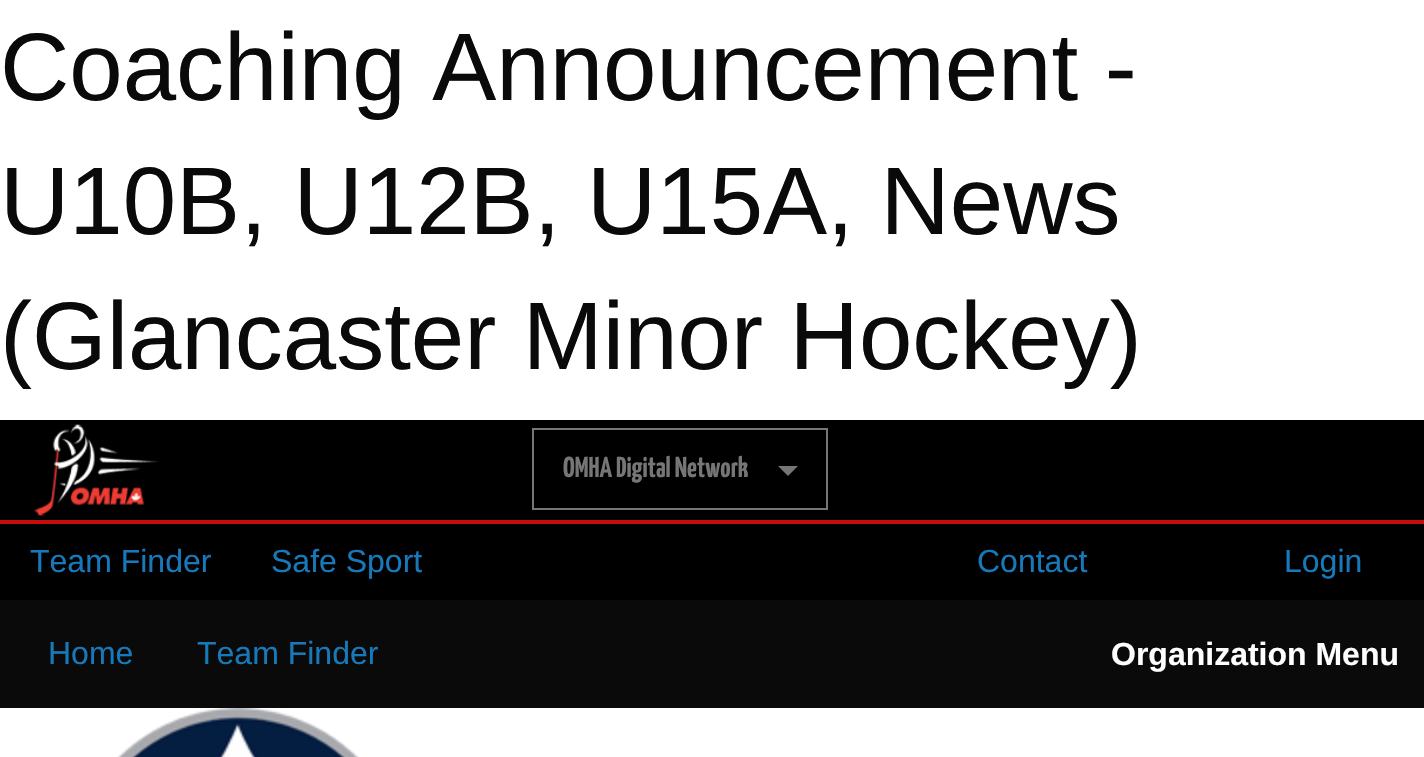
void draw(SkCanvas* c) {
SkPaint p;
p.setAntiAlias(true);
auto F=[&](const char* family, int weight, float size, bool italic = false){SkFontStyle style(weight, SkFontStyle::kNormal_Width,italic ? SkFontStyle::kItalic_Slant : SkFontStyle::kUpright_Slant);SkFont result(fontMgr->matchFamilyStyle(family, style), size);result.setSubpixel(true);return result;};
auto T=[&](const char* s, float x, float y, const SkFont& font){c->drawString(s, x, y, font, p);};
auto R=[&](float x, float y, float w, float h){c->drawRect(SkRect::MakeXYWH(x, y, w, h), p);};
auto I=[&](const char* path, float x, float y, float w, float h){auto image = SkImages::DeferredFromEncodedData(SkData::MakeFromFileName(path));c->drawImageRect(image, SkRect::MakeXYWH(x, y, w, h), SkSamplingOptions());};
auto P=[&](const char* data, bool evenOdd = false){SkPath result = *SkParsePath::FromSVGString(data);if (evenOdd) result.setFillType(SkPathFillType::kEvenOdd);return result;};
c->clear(0xffffffff);
auto f1 = F("Liberation Sans",400,96);
p.setColor(0xff0a0a0a);
T("Coaching Announcement -",0,100,f1);
T("U10B, U12B, U15A, News",0,234,f1);
T("(Glancaster Minor Hockey)",0,369,f1);
p.setColor(0xff000000);
R(0,420,1424,100);
p.setColor(0xffc60c0c);
R(0,520,1424,4);
I("1.png",34,424,125,92);
p.setStroke(true);
p.setStrokeWidth(2);
p.setColor(0xff767676);
c->drawRect(SkRect::MakeXYWH(533,429,294,80),p);
auto f2 = F("Yanone Kaffeesatz",200,28.75);
p.setStroke(false);
T("OMHA Digital Network",563,477,f2);
c->drawPath(P("M778 466h20l-10 10z"),p);
p.setColor(0xff000000);
R(0,524,1424,76);
auto f3 = F("Liberation Sans",400,32);
p.setColor(0xff1779ba);
T("Team Finder",30,572,f3);
T("Safe Sport",271,572,f3);
T("Contact",977,572,f3);
T("Login",1284,572,f3);
p.setColor(0xff0a0a0a);
R(0,600,1424,108);
p.setColor(0xff1779ba);
T("Home",48,664,f3);
T("Team Finder",197,664,f3);
auto f4 = F("Liberation Sans",700,32);
p.setColor(0xfffefefe);
T("Organization Menu",1111,665,f4);
I("2.png",117,708,242,49);
}
